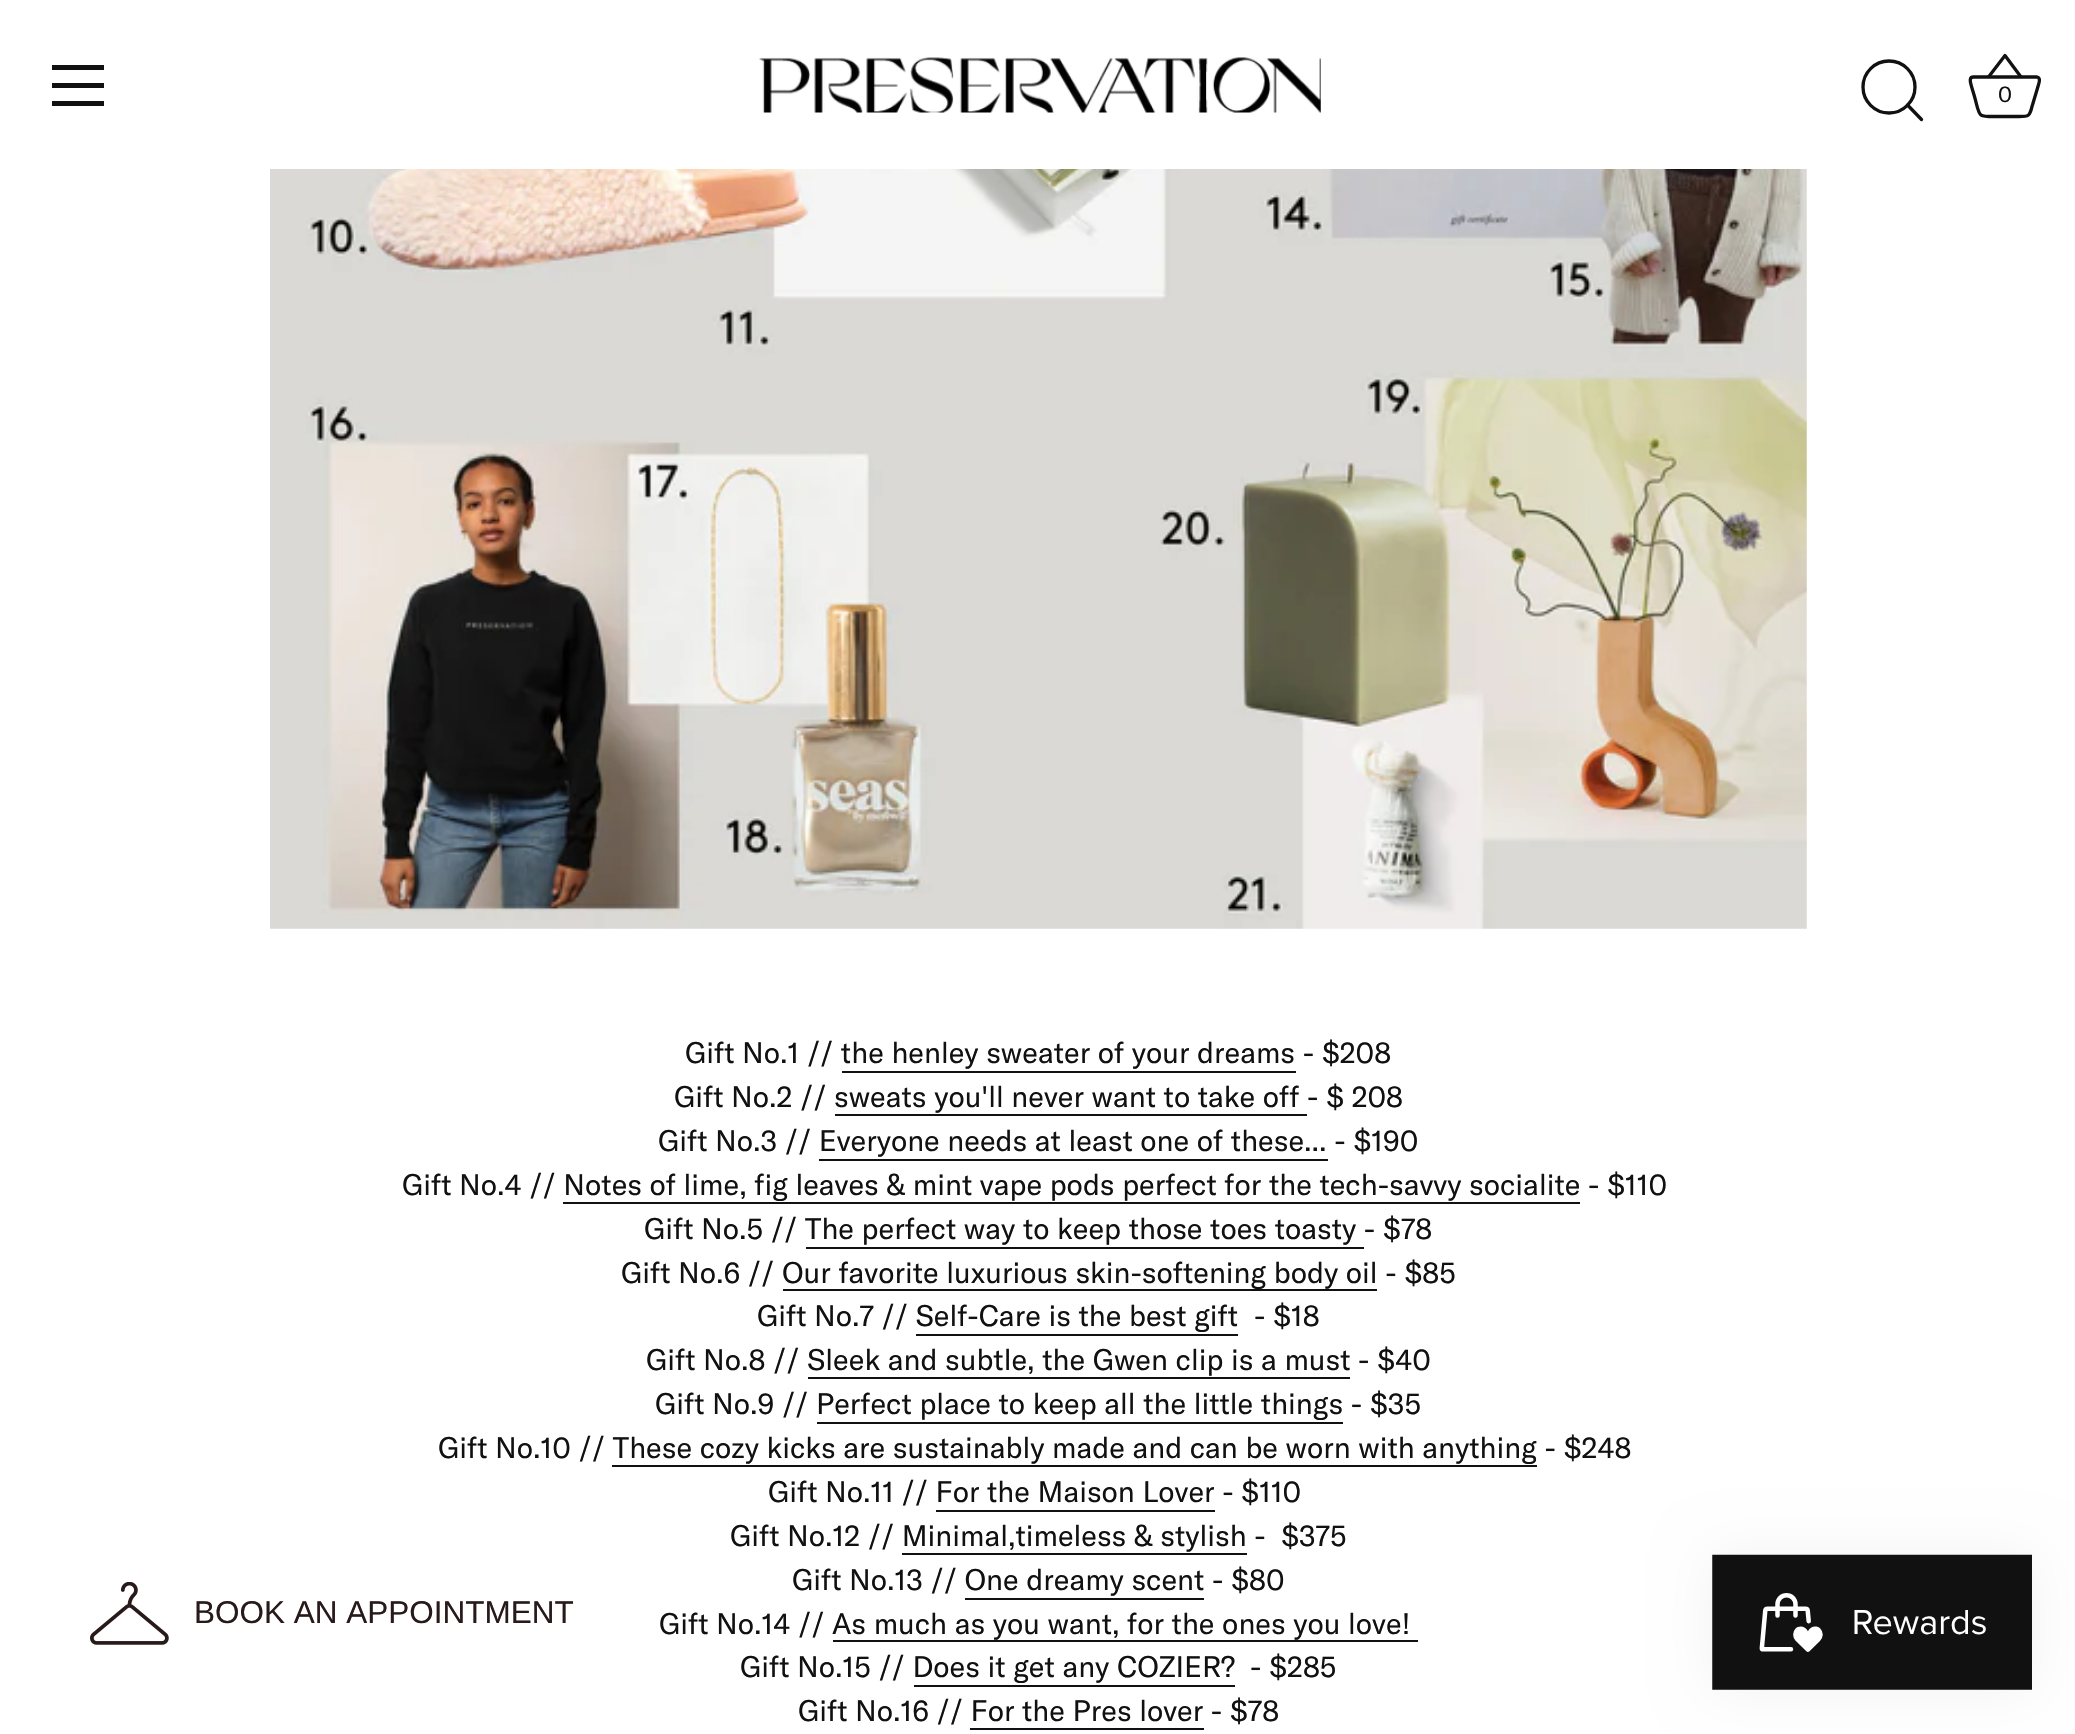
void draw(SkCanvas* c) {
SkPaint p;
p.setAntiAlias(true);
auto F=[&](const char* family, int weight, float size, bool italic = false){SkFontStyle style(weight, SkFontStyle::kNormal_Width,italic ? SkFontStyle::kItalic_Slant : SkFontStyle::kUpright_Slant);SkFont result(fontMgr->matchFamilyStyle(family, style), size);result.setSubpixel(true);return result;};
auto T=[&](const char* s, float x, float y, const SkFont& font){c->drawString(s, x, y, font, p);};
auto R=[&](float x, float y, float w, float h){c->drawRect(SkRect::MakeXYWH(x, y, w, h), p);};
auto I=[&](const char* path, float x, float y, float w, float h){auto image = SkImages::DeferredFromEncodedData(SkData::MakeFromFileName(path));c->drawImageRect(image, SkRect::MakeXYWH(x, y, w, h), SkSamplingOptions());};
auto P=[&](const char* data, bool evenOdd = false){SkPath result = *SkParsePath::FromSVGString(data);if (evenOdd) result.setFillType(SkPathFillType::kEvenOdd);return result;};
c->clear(0xffffffff);
p.setColor(0xff111111);
R(52,65,52,5);
R(52,83,52,5);
R(52,101,52,5);
I("1.png",759,57,562,56);
p.setStroke(true);
p.setStrokeWidth(3.3);
c->drawCircle(1889,87,26,p);
p.setStrokeCap(SkPaint::kRound_Cap);
p.setStrokeJoin(SkPaint::kRound_Join);
c->drawPath(P("M1921.5 119.5l-14-14.5"),p);
p.setStrokeCap(SkPaint::kButt_Cap);
c->drawPath(P("M1973.5 77c-5.5 0-2.5 7-2 9.5l3 10c6 21.5 2 20 24 20h19c11 0 12 .5 14.5-10l6-20c.5-2.5 3.5-8.5-1-9.5h-63.5"),p);
c->drawPath(P("M1988.5 77l16.5-21.5l16 21.5"),p);
auto f1 = F("GT America",400,22);
p.setStroke(false);
T("0",1998,102,f1);
I("2.png",90,1582,79,63);
auto f2 = F("Liberation Sans",400,31.5);
p.setColor(0xff281a1a);
T("BOOK AN APPOINTMENT",194,1623,f2);
I("3.png",270,169,1537,760);
auto f3 = F("GT America",400,29.25);
p.setColor(0xff111111);
T("Gift No.1 // the henley sweater of your dreams - $208",685,1063,f3);
R(842,1071,454,2);
T("Gift No.2 // sweats you'll never want to take off - $ 208",674,1107,f3);
R(835,1114,472,2);
T("Gift No.3 // Everyone needs at least one of these... - $190",658,1151,f3);
R(819,1159,509,2);
T("Gift No.4 // Notes of lime, fig leaves & mint vape pods perfect for the tech-savvy socialite - $110",402,1195,f3);
R(563,1202,1017,2);
T("Gift No.5 // The perfect way to keep those toes toasty - $78",644,1239,f3);
R(806,1247,558,2);
T("Gift No.6 //",621,1283,f3);
R(783,1289,594,2);
T("Our favorite luxurious skin-softening body oil - $85",782,1283,f3);
T("Gift No.7 // Self-Care is the best gift",757,1326,f3);
T("- $18",1254,1326,f3);
R(916,1334,322,2);
T("Gift No.8 // Sleek and subtle, the Gwen clip is a must - $40",646,1370,f3);
R(808,1377,542,2);
T("Gift No.9 // Perfect place to keep all the little things - $35",655,1414,f3);
R(817,1422,526,2);
T("Gift No.10 // These cozy kicks are sustainably made and can be worn with anything - $248",438,1458,f3);
R(612,1465,925,2);
T("Gift No.11 // For the Maison Lover - $110",768,1502,f3);
R(936,1510,279,2);
T("Gift No.12 // Minimal,timeless & stylish -  $375",730,1546,f3);
R(902,1553,345,2);
T("Gift No.13 // One dreamy scent - $80",792,1590,f3);
R(965,1598,239,2);
T("Gift No.14 // As much as you want, for the ones you love!",659,1634,f3);
R(833,1640,585,2);
T("Gift No.15 // Does it get any COZIER?",740,1677,f3);
T("- $285",1250,1677,f3);
R(914,1685,321,2);
T("Gift No.16 // For the Pres lover - $78",798,1721,f3);
R(970,1728,234,2);
p.setColor(0x0d000000);
p.setMaskFilter(SkMaskFilter::MakeBlur(kNormal_SkBlurStyle, 28));
c->drawRect(SkRect::MakeXYWH(1712,1555,320,135),p);
p.setMaskFilter(nullptr);
I("4.png",1712,1554,320,136);
}
